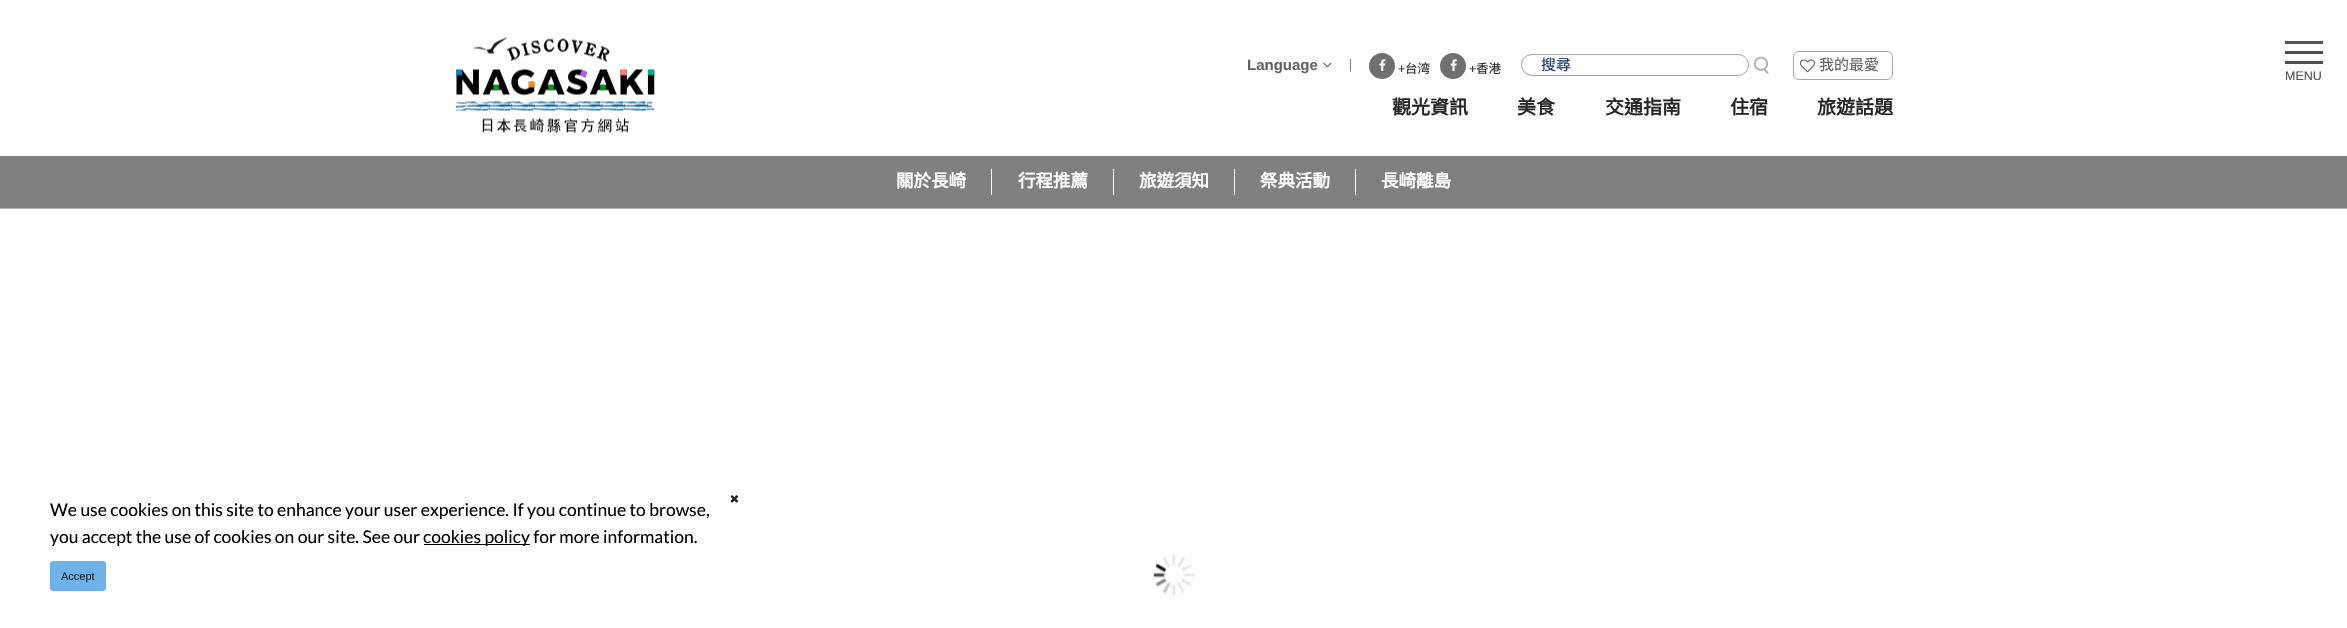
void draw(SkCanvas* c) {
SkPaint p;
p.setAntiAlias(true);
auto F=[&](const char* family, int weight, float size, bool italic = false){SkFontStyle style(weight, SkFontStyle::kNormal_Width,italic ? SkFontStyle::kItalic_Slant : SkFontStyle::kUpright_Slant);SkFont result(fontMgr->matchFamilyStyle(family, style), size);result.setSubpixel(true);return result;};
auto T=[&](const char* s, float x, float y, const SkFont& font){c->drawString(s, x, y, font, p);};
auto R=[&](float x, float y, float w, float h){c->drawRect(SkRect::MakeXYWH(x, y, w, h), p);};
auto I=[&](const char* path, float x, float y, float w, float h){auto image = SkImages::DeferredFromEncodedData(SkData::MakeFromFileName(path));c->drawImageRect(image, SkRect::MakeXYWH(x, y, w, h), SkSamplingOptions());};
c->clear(0xffffffff);
p.setColor(0xffb3b3b3);
R(0,208,2347,1);
I("1.png",455,37,200,96);
auto f1 = F("Liberation Sans",700,15);
p.setColor(0xff636262);
T("Language",1247,70,f1);
I("2.png",1323,62,9,6);
auto f2 = F("Noto Sans CJK TC",400,12.5);
p.setColor(0xff262626);
T("｜",1344,70,f2);
p.setColor(0xff707072);
c->drawCircle(1382,66,13,p);
I("3.png",1379,59,7,12);
auto f3 = F("Liberation Sans",400,12.5);
p.setColor(0xff262626);
T("+",1398,73,f3);
T("台湾",1405,73,f2);
p.setColor(0xff707072);
c->drawCircle(1453,66,13,p);
I("4.png",1450,59,7,12);
p.setColor(0xff262626);
T("+",1469,73,f3);
T("香港",1476,73,f2);
p.setStroke(true);
p.setStrokeWidth(1);
p.setColor(0xffa3a4a5);
c->drawRoundRect(SkRect::MakeXYWH(1521.5,54.5,227,21),10.5,10.5,p);
auto f4 = F("Noto Sans CJK TC",400,15);
p.setStroke(false);
p.setColor(0xff223a70);
T("搜尋",1541,70,f4);
I("5.png",1754,56,15,18);
p.setStroke(true);
p.setColor(0xffa3a4a5);
c->drawRoundRect(SkRect::MakeXYWH(1793.5,51.5,99,28),5.5,5.5,p);
I("6.png",1800,59,15,14);
p.setStroke(false);
p.setColor(0xff636262);
T("我的最愛",1819,70,f4);
auto f5 = F("Noto Sans CJK TC",700,19);
p.setColor(0xff262626);
T("觀光資訊",1392,114,f5);
T("美食",1517,114,f5);
T("交通指南",1605,114,f5);
T("住宿",1730,114,f5);
T("旅遊話題",1817,114,f5);
p.setColor(0xff525050);
R(2285,41,38,3);
R(2285,51,38,3);
R(2285,61,38,3);
T("MENU",2285,80,f3);
p.setColor(0xff808080);
R(0,156,2347,52);
p.setColor(0xffffffff);
R(991,169,1,26);
auto f6 = F("Noto Sans CJK TC",700,17.5);
T("關於長崎",896,187,f6);
R(1113,169,1,26);
T("行程推薦",1018,187,f6);
R(1234,169,1,26);
T("旅遊須知",1139,187,f6);
R(1355,169,1,26);
T("祭典活動",1260,187,f6);
T("長崎離島",1381,187,f6);
I("7.png",730,495,9,8);
auto f7 = F("Lato",400,17.5);
p.setColor(0xff000000);
T("We use cookies on this site to enhance your user experience. If you continue to browse,",50,516,f7);
T("you accept the use of cookies on our site. See our",50,543,f7);
R(424,544,106,1);
T("cookies policy for more information.",423,543,f7);
p.setColor(0xff6cb2eb);
c->drawRoundRect(SkRect::MakeXYWH(50.5,561.5,55,29),2.5,2.5,p);
p.setStroke(true);
c->drawRoundRect(SkRect::MakeXYWH(50.5,561.5,55,29),2.5,2.5,p);
auto f8 = F("Liberation Sans",400,11);
p.setStroke(false);
p.setColor(0xff1a1a1a);
T("Accept",61,580,f8);
I("8.png",1153,554,41,42);
}
